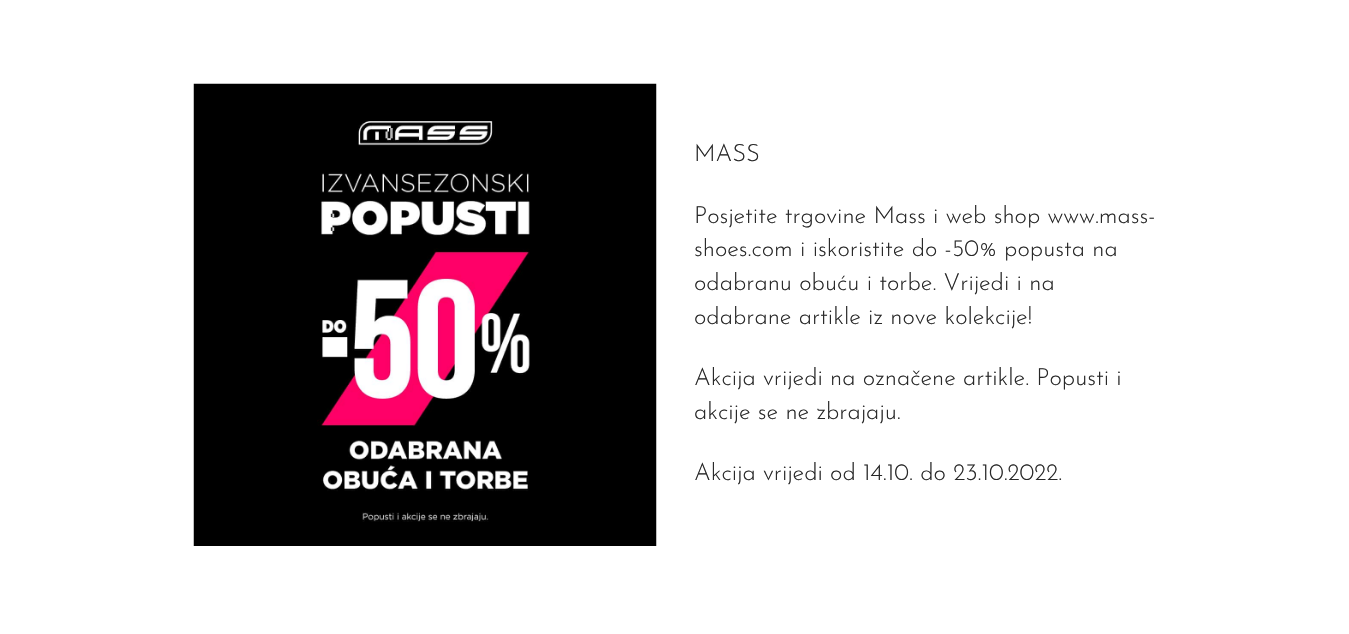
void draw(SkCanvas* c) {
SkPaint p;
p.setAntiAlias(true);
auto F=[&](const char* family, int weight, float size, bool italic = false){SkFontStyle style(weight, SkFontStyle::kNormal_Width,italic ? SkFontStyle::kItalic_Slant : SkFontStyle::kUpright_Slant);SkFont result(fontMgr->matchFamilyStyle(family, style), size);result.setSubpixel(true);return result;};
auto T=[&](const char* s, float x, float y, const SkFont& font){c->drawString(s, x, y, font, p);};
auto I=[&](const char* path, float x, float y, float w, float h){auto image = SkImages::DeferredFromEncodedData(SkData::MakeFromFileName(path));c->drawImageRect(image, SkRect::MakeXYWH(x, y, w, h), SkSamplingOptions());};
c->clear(0xffffffff);
I("1.png",193,83,464,463);
auto f1 = F("Josefin Sans",300,23.75);
p.setColor(0xff282828);
T("MASS",694,161,f1);
T("Posjetite trgovine Mass i web shop www.mass-",694,223,f1);
T("shoes.com i iskoristite do -50% popusta na",694,256,f1);
T("odabranu obuću i torbe. Vrijedi i na",694,290,f1);
T("odabrane artikle iz nove kolekcije!",694,324,f1);
T("Akcija vrijedi na označene artikle. Popusti i",694,385,f1);
T("akcije se ne zbrajaju.",694,419,f1);
T("Akcija vrijedi od 14.10. do 23.10.2022.",694,480,f1);
}
